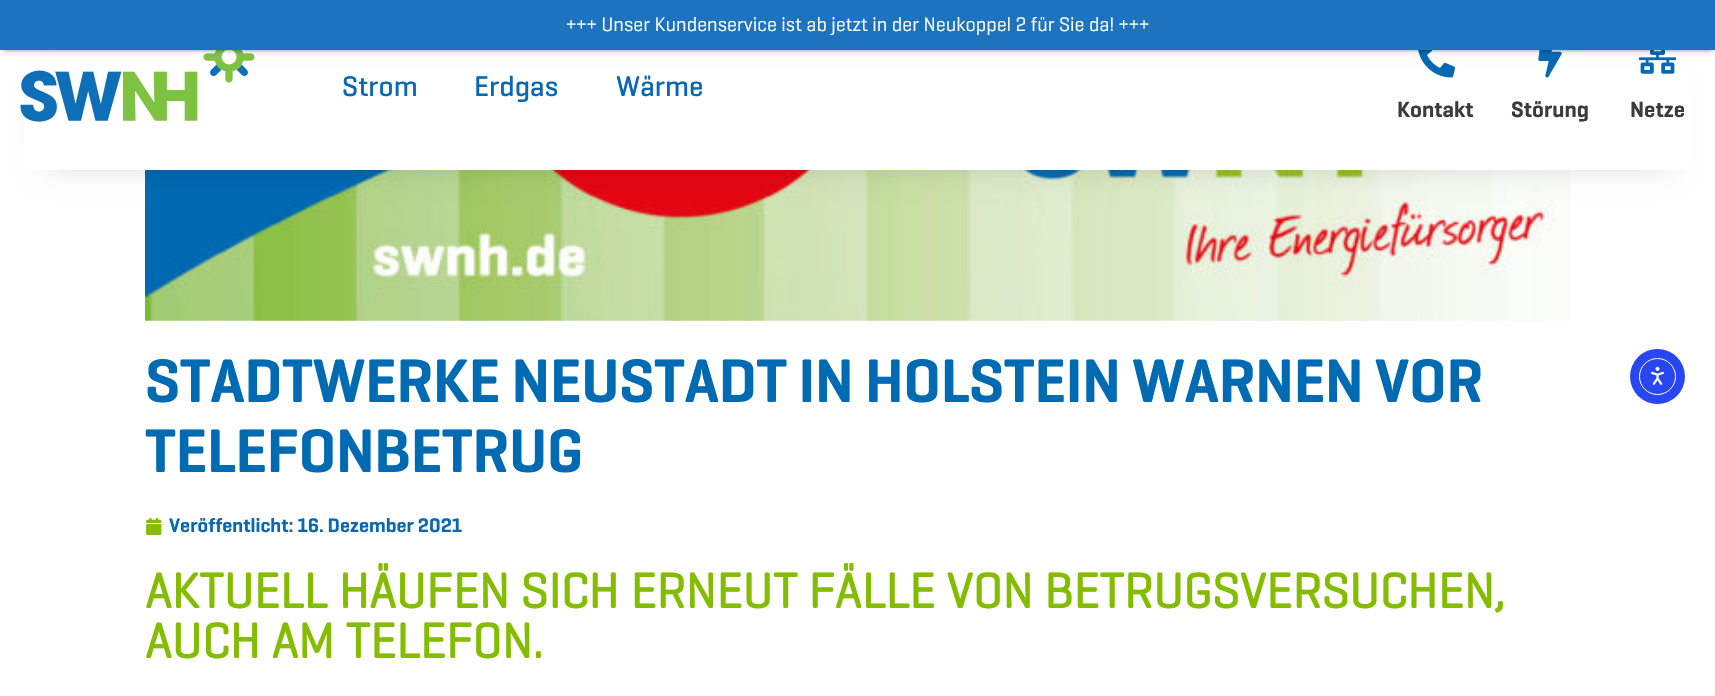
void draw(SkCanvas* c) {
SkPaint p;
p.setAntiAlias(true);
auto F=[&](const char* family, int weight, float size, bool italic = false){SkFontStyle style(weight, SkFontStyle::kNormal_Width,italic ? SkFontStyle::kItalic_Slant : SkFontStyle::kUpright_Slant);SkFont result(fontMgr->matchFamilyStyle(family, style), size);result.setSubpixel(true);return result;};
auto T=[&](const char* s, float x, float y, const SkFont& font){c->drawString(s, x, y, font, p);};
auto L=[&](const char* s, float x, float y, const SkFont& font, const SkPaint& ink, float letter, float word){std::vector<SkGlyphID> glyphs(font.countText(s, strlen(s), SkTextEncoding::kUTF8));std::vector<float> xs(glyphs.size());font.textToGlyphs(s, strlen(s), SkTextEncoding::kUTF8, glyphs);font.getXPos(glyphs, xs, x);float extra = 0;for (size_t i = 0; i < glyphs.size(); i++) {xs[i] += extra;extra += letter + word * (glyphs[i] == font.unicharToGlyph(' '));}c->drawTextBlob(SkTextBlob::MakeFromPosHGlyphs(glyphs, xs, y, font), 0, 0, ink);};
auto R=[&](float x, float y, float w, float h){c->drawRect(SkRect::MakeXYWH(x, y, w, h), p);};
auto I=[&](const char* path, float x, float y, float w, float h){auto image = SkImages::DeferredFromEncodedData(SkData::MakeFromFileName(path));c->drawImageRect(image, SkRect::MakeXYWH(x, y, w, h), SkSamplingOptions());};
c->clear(0xffffffff);
I("5.png",145,170,1425,151);
p.setColor(0x26000000);
p.setMaskFilter(SkMaskFilter::MakeBlur(kNormal_SkBlurStyle, 15));
c->drawRect(SkRect::MakeXYWH(46,89,1623,77),p);
p.setMaskFilter(nullptr);
p.setColor(0xffffffff);
R(24,66,1667,104);
I("1.png",20,50,235,72);
I("2.png",1418,50,37,28);
I("3.png",1538,50,24,28);
I("4.png",1639,50,37,24);
p.setColor(0x80000000);
p.setMaskFilter(SkMaskFilter::MakeBlur(kNormal_SkBlurStyle, 2.5));
c->drawRect(SkRect::MakeXYWH(3,5,1710,45),p);
p.setMaskFilter(nullptr);
p.setColor(0xff1e73be);
R(0,0,1715,50);
auto f1 = F("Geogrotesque",400,20);
p.setColor(0xffffffff);
T("+++ Unser Kundenservice ist ab jetzt in der Neukoppel 2 für Sie da! +++",566,31,f1);
auto f2 = F("Geogrotesque",500,29);
p.setColor(0xff0968b2);
T("Strom",342,96,f2);
T("Erdgas",474,96,f2);
T("Wärme",616,96,f2);
auto f3 = F("Geogrotesque",600,22.5);
p.setColor(0xff3b3b3b);
T("Kontakt",1397,117,f3);
T("Störung",1511,117,f3);
T("Netze",1630,117,f3);
auto f4 = F("Geogrotesque",600,62.5);
p.setColor(0xff006ab2);
L("STADTWERKE NEUSTADT IN HOLSTEIN WARNEN VOR",145,402,f4,p,-.6,0);
L("TELEFONBETRUG",145,472,f4,p,-.6,0);
I("6.png",146,518,16,17);
auto f5 = F("Geogrotesque",600,20);
p.setColor(0xff0968b2);
T("Veröffentlicht: 16. Dezember 2021",169,532,f5);
auto f6 = F("Geogrotesque",700,50);
p.setColor(0xff84bd00);
T("AKTUELL HÄUFEN SICH ERNEUT FÄLLE VON BETRUGSVERSUCHEN,",145,608,f6);
T("AUCH AM TELEFON.",145,658,f6);
p.setColor(0xff2847f3);
c->drawCircle(1657.5,376.5,27.5,p);
p.setStroke(true);
p.setStrokeWidth(1);
p.setColor(0xffffffff);
c->drawCircle(1657.5,376.5,18,p);
I("7.png",1651,366,13,19);
}
